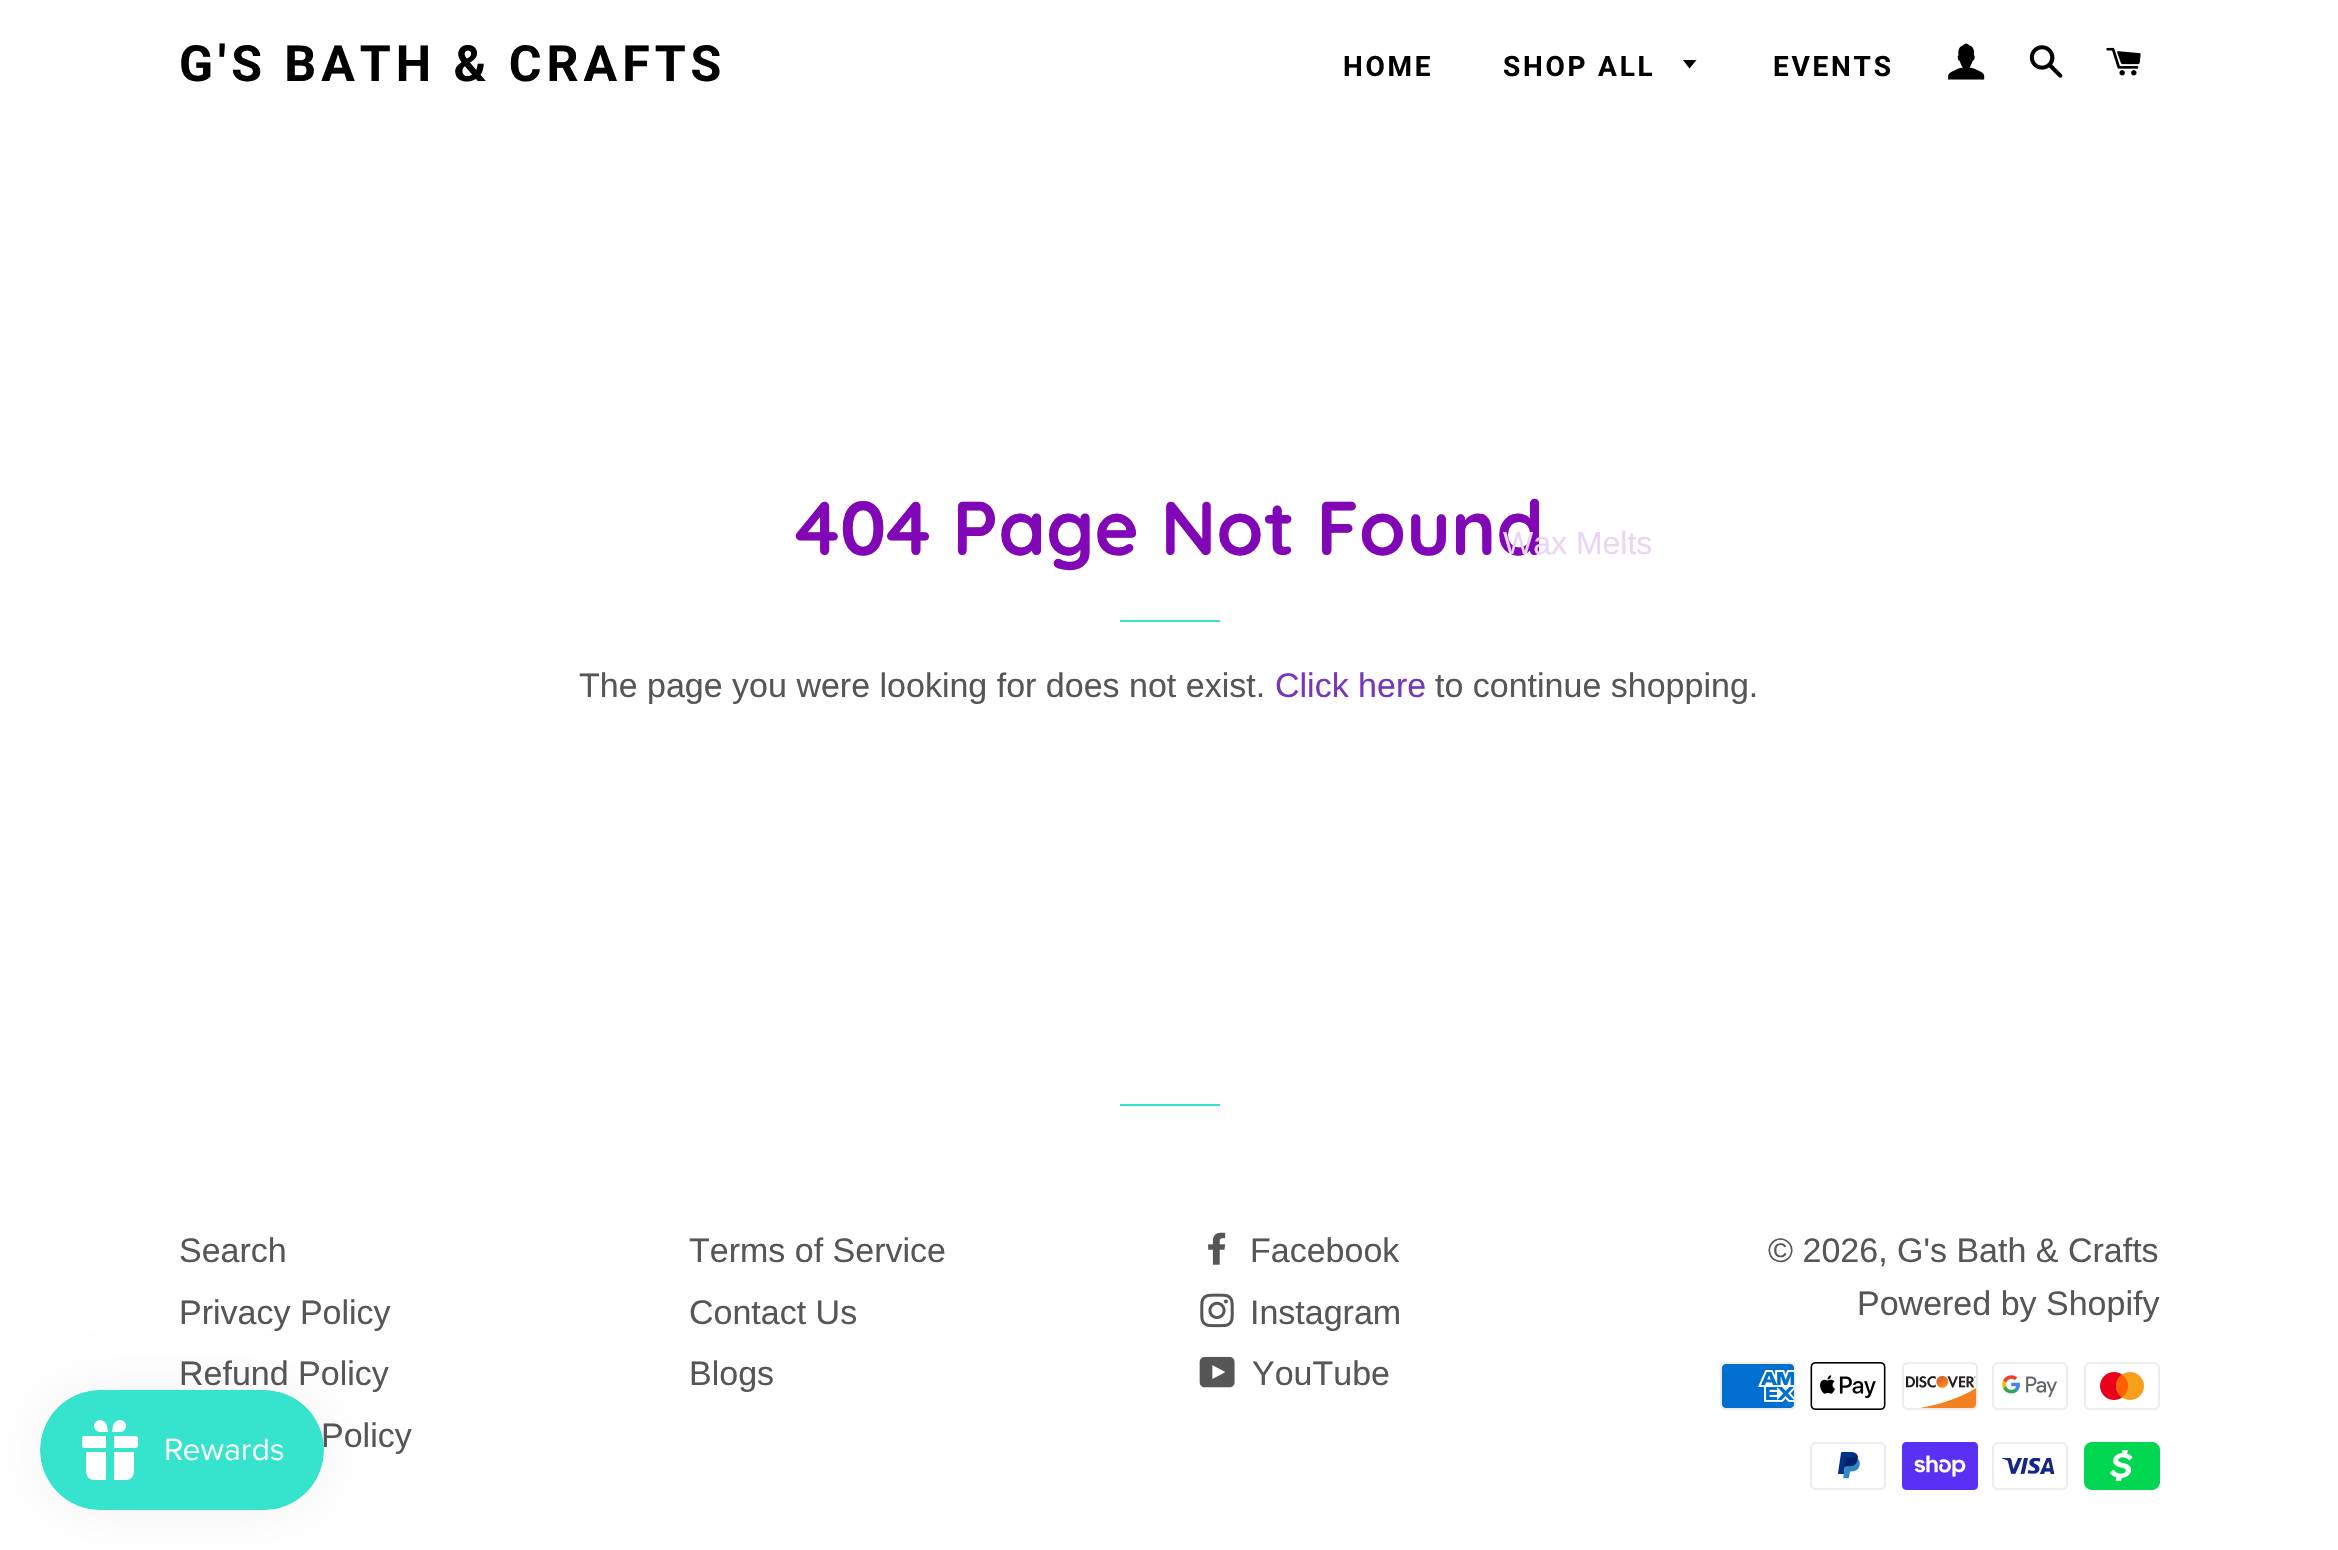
void draw(SkCanvas* c) {
SkPaint p;
p.setAntiAlias(true);
auto F=[&](const char* family, int weight, float size, bool italic = false){SkFontStyle style(weight, SkFontStyle::kNormal_Width,italic ? SkFontStyle::kItalic_Slant : SkFontStyle::kUpright_Slant);SkFont result(fontMgr->matchFamilyStyle(family, style), size);result.setSubpixel(true);return result;};
auto T=[&](const char* s, float x, float y, const SkFont& font){c->drawString(s, x, y, font, p);};
auto L=[&](const char* s, float x, float y, const SkFont& font, const SkPaint& ink, float letter, float word){std::vector<SkGlyphID> glyphs(font.countText(s, strlen(s), SkTextEncoding::kUTF8));std::vector<float> xs(glyphs.size());font.textToGlyphs(s, strlen(s), SkTextEncoding::kUTF8, glyphs);font.getXPos(glyphs, xs, x);float extra = 0;for (size_t i = 0; i < glyphs.size(); i++) {xs[i] += extra;extra += letter + word * (glyphs[i] == font.unicharToGlyph(' '));}c->drawTextBlob(SkTextBlob::MakeFromPosHGlyphs(glyphs, xs, y, font), 0, 0, ink);};
auto R=[&](float x, float y, float w, float h){c->drawRect(SkRect::MakeXYWH(x, y, w, h), p);};
auto I=[&](const char* path, float x, float y, float w, float h){auto image = SkImages::DeferredFromEncodedData(SkData::MakeFromFileName(path));c->drawImageRect(image, SkRect::MakeXYWH(x, y, w, h), SkSamplingOptions());};
auto P=[&](const char* data, bool evenOdd = false){SkPath result = *SkParsePath::FromSVGString(data);if (evenOdd) result.setFillType(SkPathFillType::kEvenOdd);return result;};
c->clear(0xffffffff);
auto f1 = F("Roboto",700,50);
p.setColor(0xff000000);
L("G'S BATH & CRAFTS",179,81,f1,p,5,0);
auto f2 = F("Roboto",700,28);
L("HOME",1343,76,f2,p,2.75,0);
L("SHOP ALL",1503,76,f2,p,2.75,0);
c->drawPath(P("M1683 60l6.5 8.5l7-8.5z"),p);
auto f3 = F("Quicksand",700,76);
p.setColor(0xff8107b6);
T("404 Page Not Found",795,555,f3);
auto f4 = F("Liberation Sans",400,32);
p.setColor(0xffead6f3);
T("Wax Melts",1503,554,f4);
p.setColor(0xff000000);
L("EVENTS",1773,76,f2,p,2.75,0);
I("1.png",1948,43,37,37);
I("2.png",2029,45,34,33);
I("3.png",2106,47,35,29);
p.setColor(0xff36e4cd);
R(1120,620,100,2);
auto f5 = F("Liberation Sans",400,34);
p.setColor(0xff565656);
T("The page you were looking for does not exist.",579,697,f5);
p.setColor(0xff7737bd);
T("Click here",1275,697,f5);
p.setColor(0xff565656);
T("to continue shopping.",1435,697,f5);
p.setColor(0xff36e4cd);
R(1120,1104,100,2);
p.setColor(0xff565656);
T("Search",179,1262,f5);
T("Privacy Policy",179,1324,f5);
T("Refund Policy",179,1385,f5);
T("Policy",321,1447,f5);
T("Terms of Service",689,1262,f5);
T("Contact Us",689,1324,f5);
T("Blogs",689,1385,f5);
I("4.png",1208,1232,18,33);
T("Facebook",1250,1262,f5);
I("5.png",1200,1293,34,35);
T("Instagram",1250,1324,f5);
I("6.png",1199,1356,36,32);
T("YouTube",1252,1385,f5);
T("© 2026, G's Bath & Crafts",1768,1262,f5);
T("Powered by Shopify",1857,1315,f5);
I("7.png",1720,1362,76,48);
I("8.png",1810,1362,76,48);
I("9.png",1902,1362,76,48);
I("10.png",1992,1362,76,48);
I("11.png",2084,1362,76,48);
I("12.png",1810,1442,76,48);
I("13.png",1902,1442,76,48);
I("14.png",1992,1442,76,48);
I("15.png",2084,1442,76,48);
p.setColor(0x0d000000);
p.setMaskFilter(SkMaskFilter::MakeBlur(kNormal_SkBlurStyle, 25));
c->drawRoundRect(SkRect::MakeXYWH(40,1390,284,120),60,60,p);
p.setMaskFilter(nullptr);
I("16.png",40,1390,284,120);
}
